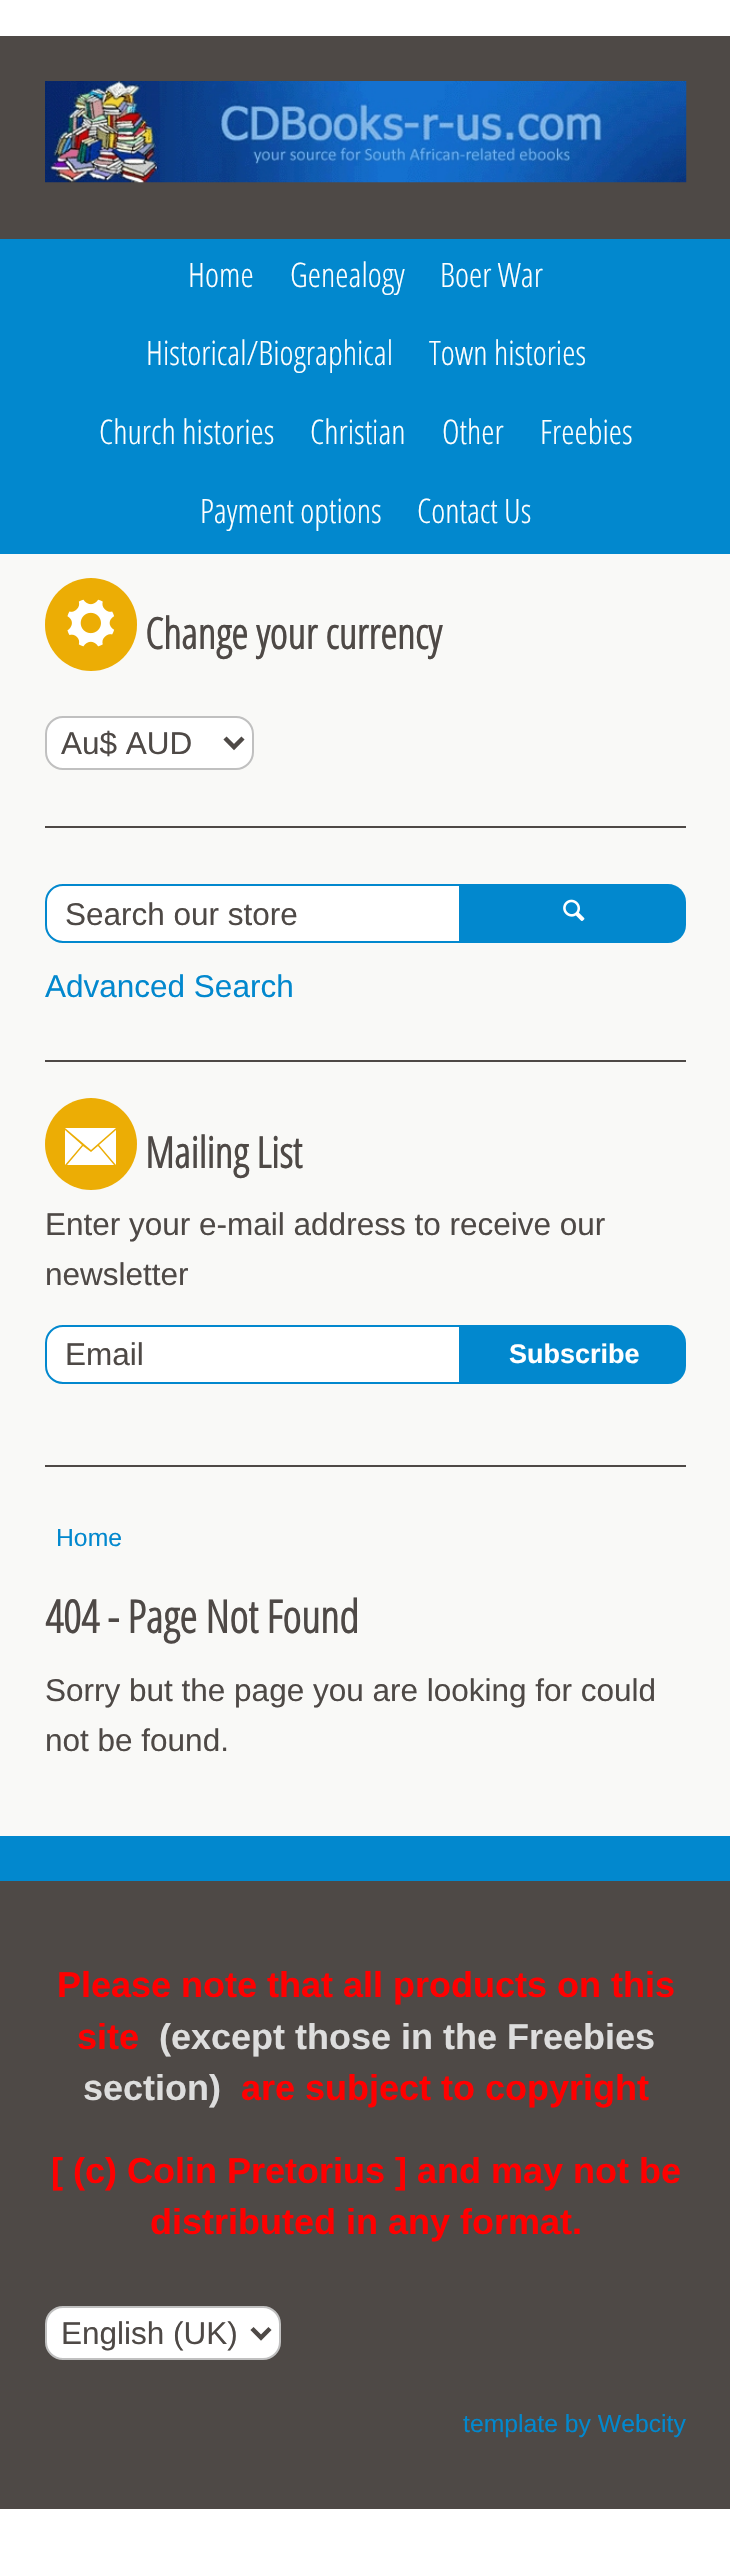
void draw(SkCanvas* c) {
SkPaint p;
p.setAntiAlias(true);
auto F=[&](const char* family, int weight, float size, bool italic = false){SkFontStyle style(weight, SkFontStyle::kNormal_Width,italic ? SkFontStyle::kItalic_Slant : SkFontStyle::kUpright_Slant);SkFont result(fontMgr->matchFamilyStyle(family, style), size);result.setSubpixel(true);return result;};
auto T=[&](const char* s, float x, float y, const SkFont& font){c->drawString(s, x, y, font, p);};
auto R=[&](float x, float y, float w, float h){c->drawRect(SkRect::MakeXYWH(x, y, w, h), p);};
auto Q=[&](float x, float y, float w, float h, float radius){c->drawRoundRect(SkRect::MakeXYWH(x, y, w, h), radius, radius, p);};
auto I=[&](const char* path, float x, float y, float w, float h){auto image = SkImages::DeferredFromEncodedData(SkData::MakeFromFileName(path));c->drawImageRect(image, SkRect::MakeXYWH(x, y, w, h), SkSamplingOptions());};
auto P=[&](const char* data, bool evenOdd = false){SkPath result = *SkParsePath::FromSVGString(data);if (evenOdd) result.setFillType(SkPathFillType::kEvenOdd);return result;};
c->clear(0xffffffff);
p.setColor(0xff4e4946);
R(0,36,730,2473);
I("1.png",45,81,642,102);
p.setColor(0xff0288ce);
R(0,239,730,315);
auto f1 = F("Open Sans Condensed",300,33.75);
p.setColor(0xffffffff);
T("Home",188,287,f1);
T("Genealogy",290,287,f1);
T("Boer War",440,287,f1);
T("Historical/Biographical",146,365,f1);
T("Town histories",429,365,f1);
T("Church histories",99,444,f1);
T("Christian",310,444,f1);
T("Other",442,444,f1);
T("Freebies",540,444,f1);
T("Payment options",200,523,f1);
T("Contact Us",417,523,f1);
p.setColor(0xfff9f9f7);
R(0,554,730,1282);
p.setColor(0xff4e4946);
R(45,826,641,2);
p.setColor(0xffecad05);
Q(45,578,92,93,46);
I("2.png",67,599,48,48);
auto f2 = F("Open Sans Condensed",700,42.75);
p.setColor(0xff4e4946);
T("Change your currency",145,649,f2);
p.setColor(0xffffffff);
c->drawRoundRect(SkRect::MakeXYWH(46,717,207,52),17,17,p);
p.setStroke(true);
p.setStrokeWidth(2);
p.setColor(0xffc0c0c0);
c->drawRoundRect(SkRect::MakeXYWH(46,717,207,52),17,17,p);
p.setStrokeWidth(4.5);
p.setColor(0xff4e4946);
c->drawPath(P("M225 738l9 9l9-9"),p);
auto f3 = F("Liberation Sans",400,31.5);
p.setStroke(false);
T("Au$ AUD",61,754,f3);
R(45,1060,641,2);
p.setColor(0xffffffff);
c->drawPath(P("M63 885h397v57h-397c-9.5 0-17-7.5-17-17v-23c0-9.5 7.5-17 17-17z"),p);
p.setStroke(true);
p.setStrokeWidth(2);
p.setColor(0xff0288ce);
c->drawPath(P("M63 885h397v57h-397c-9.5 0-17-7.5-17-17v-23c0-9.5 7.5-17 17-17z"),p);
p.setStroke(false);
p.setColor(0xff4e4946);
T("Search our store",65,925,f3);
p.setColor(0xff0288ce);
c->drawPath(P("M461 884h207c10 0 18 8 18 18v23c0 10-8 18-18 18h-207z"),p);
I("3.png",563,899,22,22);
T("Advanced Search",45,997,f3);
p.setColor(0xff4e4946);
R(45,1465,641,2);
p.setColor(0xffecad05);
c->drawCircle(91,1144,46,p);
p.setColor(0xffffffff);
c->drawPath(P("M91 1152l-8-6l-16 19h47l-16-19zm25-24h-51l26 22zm-17 17l17 20v-35zm-34-15v35l17-20z"),p);
p.setColor(0xff4e4946);
T("Mailing List",145,1168,f2);
T("Enter your e-mail address to receive our",45,1235,f3);
T("newsletter",45,1285,f3);
p.setColor(0xffffffff);
c->drawPath(P("M63 1326h397v57h-397c-9.5 0-17-7.5-17-17v-23c0-9.5 7.5-17 17-17z"),p);
p.setStroke(true);
p.setColor(0xff0288ce);
c->drawPath(P("M63 1326h397v57h-397c-9.5 0-17-7.5-17-17v-23c0-9.5 7.5-17 17-17z"),p);
p.setStroke(false);
p.setColor(0xff4e4946);
T("Email",65,1365,f3);
p.setColor(0xff0288ce);
c->drawPath(P("M461 1325h207c10 0 18 8 18 18v23c0 10-8 18-18 18h-207z"),p);
auto f4 = F("Liberation Sans",700,27);
p.setColor(0xffffffff);
T("Subscribe",509,1363,f4);
auto f5 = F("Liberation Sans",400,24.75);
p.setColor(0xff0288ce);
T("Home",56,1546,f5);
auto f6 = F("Open Sans Condensed",700,45);
p.setColor(0xff4e4946);
T("404 - Page Not Found",45,1633,f6);
T("Sorry but the page you are looking for could",45,1701,f3);
T("not be found.",45,1751,f3);
p.setColor(0xff0288ce);
R(0,1836,730,45);
auto f7 = F("Liberation Sans",700,36);
p.setColor(0xffff0000);
T("Please note that all products on this",57,1997,f7);
T("site",77,2049,f7);
p.setColor(0xffdddddd);
T("(except those in the Freebies",159,2049,f7);
T("section)",83,2100,f7);
p.setColor(0xffff0000);
T("are subject to copyright",241,2100,f7);
T("[ (c) Colin Pretorius ] and may not be",51,2183,f7);
T("distributed in any format.",150,2234,f7);
p.setColor(0xffffffff);
c->drawRoundRect(SkRect::MakeXYWH(46,2307,234,52),17,17,p);
p.setStroke(true);
p.setColor(0xffc0c0c0);
c->drawRoundRect(SkRect::MakeXYWH(46,2307,234,52),17,17,p);
p.setStrokeWidth(4.5);
p.setColor(0xff4e4946);
c->drawPath(P("M252 2328.5l9 9l9-9"),p);
p.setStroke(false);
T("English (UK)",61,2344,f3);
p.setColor(0xff0288ce);
T("template by Webcity",463,2432,f5);
}
